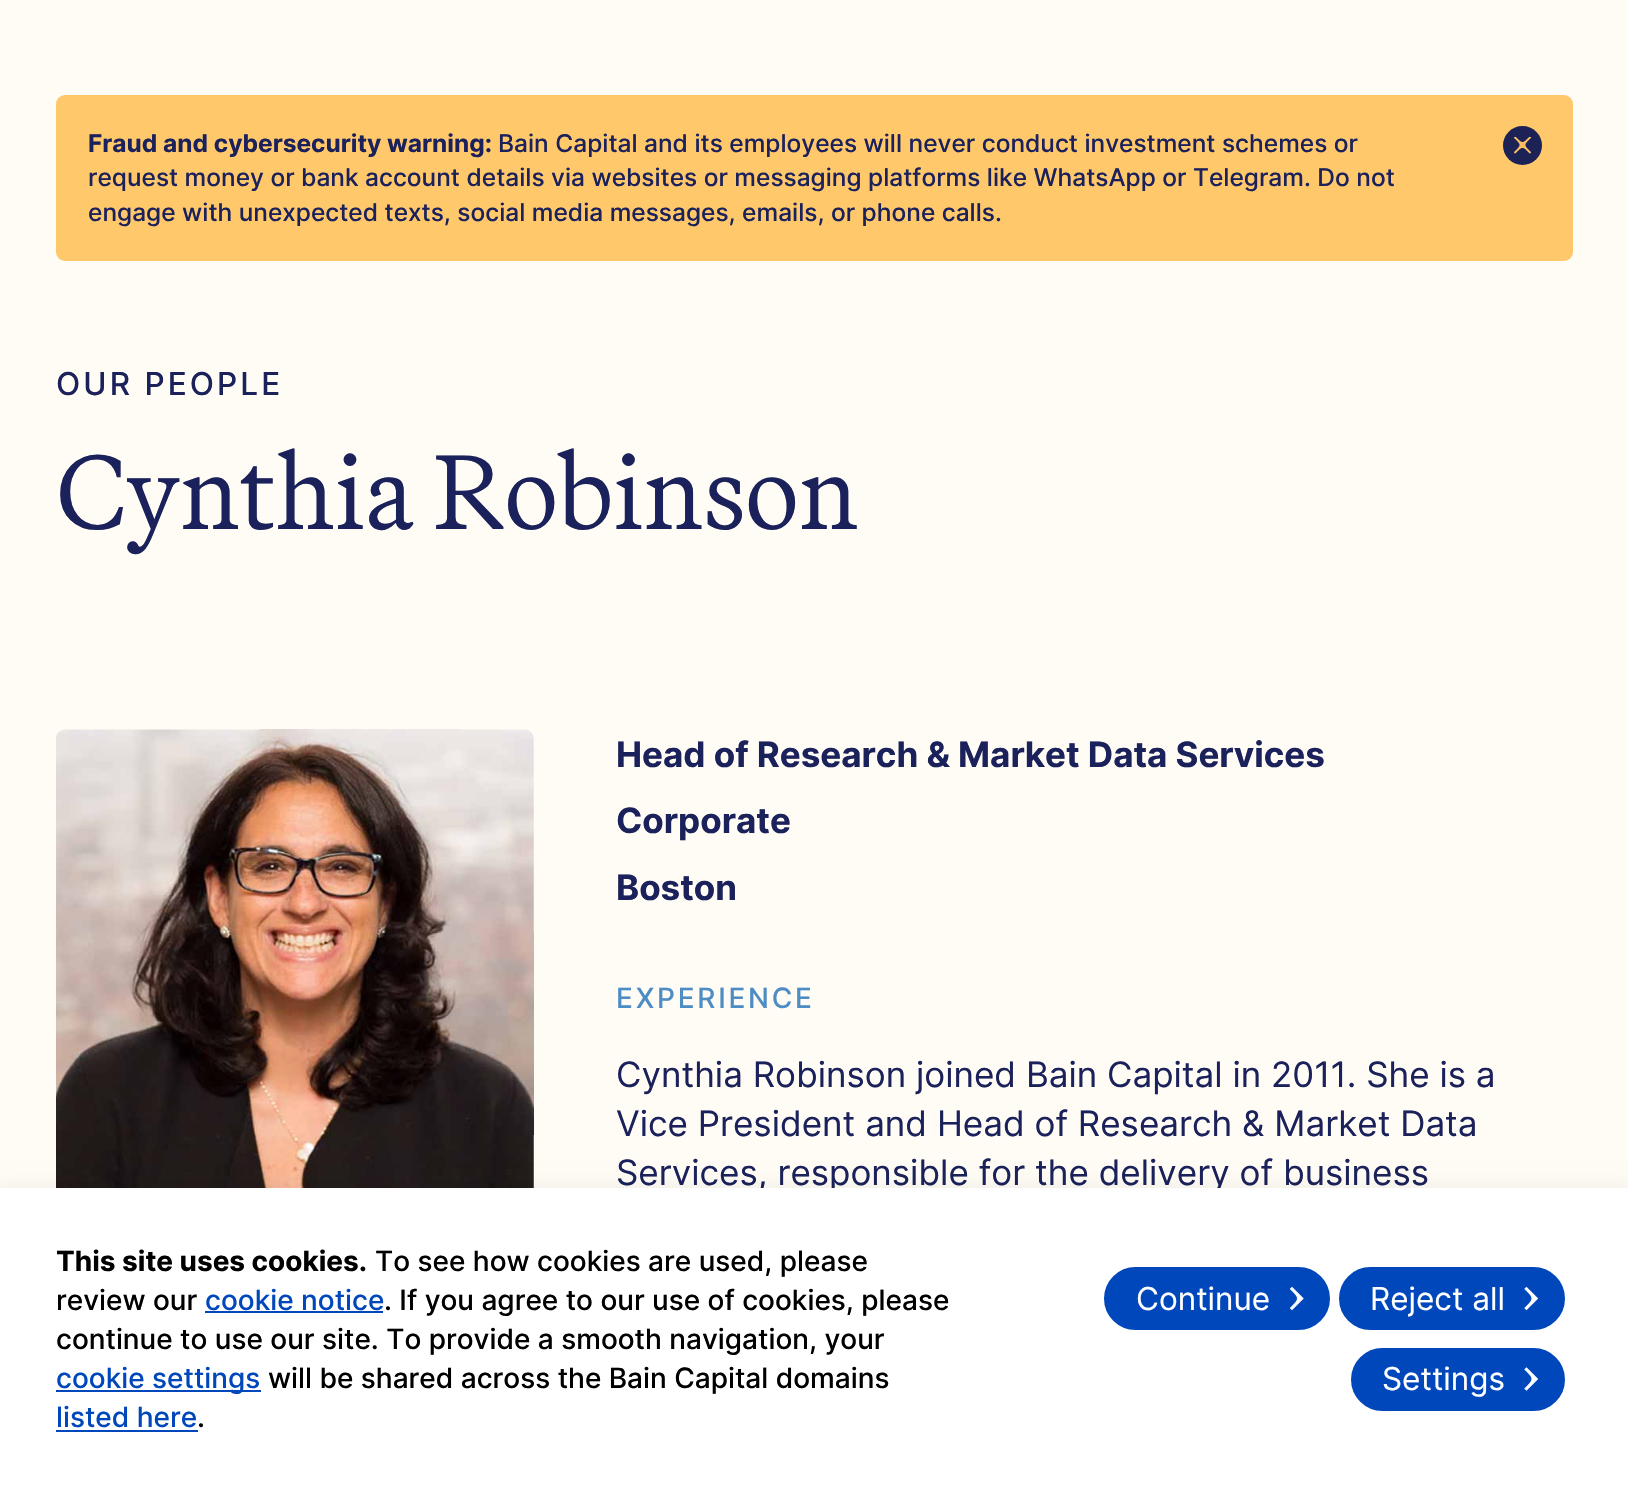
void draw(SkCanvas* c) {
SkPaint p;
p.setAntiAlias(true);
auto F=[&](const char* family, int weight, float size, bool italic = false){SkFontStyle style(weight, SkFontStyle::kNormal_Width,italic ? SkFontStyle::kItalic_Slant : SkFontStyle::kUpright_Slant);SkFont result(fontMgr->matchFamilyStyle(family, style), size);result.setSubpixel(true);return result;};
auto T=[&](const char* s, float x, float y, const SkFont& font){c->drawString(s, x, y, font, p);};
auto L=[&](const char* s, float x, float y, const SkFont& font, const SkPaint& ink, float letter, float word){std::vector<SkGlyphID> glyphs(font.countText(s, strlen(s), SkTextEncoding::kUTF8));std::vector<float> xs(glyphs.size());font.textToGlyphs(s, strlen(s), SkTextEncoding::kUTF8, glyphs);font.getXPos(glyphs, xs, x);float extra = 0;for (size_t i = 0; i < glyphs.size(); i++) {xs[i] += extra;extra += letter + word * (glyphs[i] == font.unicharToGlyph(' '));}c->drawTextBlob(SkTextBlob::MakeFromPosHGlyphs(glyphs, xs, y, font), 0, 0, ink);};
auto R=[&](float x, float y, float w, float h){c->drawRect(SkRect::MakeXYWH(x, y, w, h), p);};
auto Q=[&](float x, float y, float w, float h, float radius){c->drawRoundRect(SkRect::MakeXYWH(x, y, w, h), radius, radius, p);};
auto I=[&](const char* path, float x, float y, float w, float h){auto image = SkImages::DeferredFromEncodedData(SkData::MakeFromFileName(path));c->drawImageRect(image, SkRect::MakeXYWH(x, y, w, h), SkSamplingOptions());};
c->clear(0xfffefcf5);
p.setColor(0xffffc86b);
Q(56,95,1517,166,9);
auto f1 = F("Inter",700,24.5);
p.setColor(0xff1b215a);
T("Fraud and cybersecurity warning:",88,152,f1);
auto f2 = F("Inter",500,24.5);
T("Bain Capital and its employees will never conduct investment schemes or",498,152,f2);
T("request money or bank account details via websites or messaging platforms like WhatsApp or Telegram. Do not",88,186,f2);
T("engage with unexpected texts, social media messages, emails, or phone calls.",88,221,f2);
p.setColor(0xff1c2156);
c->drawCircle(1522.5,145.5,19.5,p);
I("1.png",1514,137,17,17);
auto f3 = F("Inter",500,31.5);
p.setColor(0xff1b215a);
L("OUR PEOPLE",56,395,f3,p,3.1,0);
auto f4 = F("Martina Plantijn",300,105);
T("Cynthia Robinson",56,529,f4);
I("2.png",56,729,478,459);
auto f5 = F("Inter",700,35);
T("Head of Research & Market Data Services",616,767,f5);
T("Corporate",616,833,f5);
T("Boston",616,900,f5);
auto f6 = F("Inter",500,28);
p.setColor(0xff4e8dc4);
L("EXPERIENCE",616,1008,f6,p,2.75,0);
auto f7 = F("Inter",400,35);
p.setColor(0xff1b215a);
T("Cynthia Robinson joined Bain Capital in 2011. She is a",616,1087,f7);
T("Vice President and Head of Research & Market Data",616,1136,f7);
T("Services, responsible for the delivery of business",616,1185,f7);
p.setColor(0x12000000);
p.setMaskFilter(SkMaskFilter::MakeBlur(kNormal_SkBlurStyle, 9));
c->drawRect(SkRect::MakeXYWH(0,1188,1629,301),p);
p.setMaskFilter(nullptr);
p.setColor(0xffffffff);
R(0,1188,1628,301);
auto f8 = F("Inter",700,28);
p.setColor(0xff000000);
T("This site uses cookies.",56,1271,f8);
T("To see how cookies are used, please",375,1271,f6);
T("review our",56,1310,f6);
p.setColor(0xff0047bb);
T("cookie notice",205,1310,f6);
p.setColor(0xff000000);
T(". If you agree to our use of cookies, please",384,1310,f6);
p.setColor(0xff0047bb);
R(205,1311,178,2);
p.setColor(0xff000000);
T("continue to use our site. To provide a smooth navigation, your",56,1349,f6);
p.setColor(0xff0047bb);
R(56,1390,205,2);
T("cookie settings",56,1388,f6);
p.setColor(0xff000000);
T("will be shared across the Bain Capital domains",268,1388,f6);
p.setColor(0xff0047bb);
T("listed here",56,1427,f6);
p.setColor(0xff000000);
T(".",197,1427,f6);
p.setColor(0xff0047bb);
R(56,1430,142,2);
c->drawRoundRect(SkRect::MakeXYWH(1106,1269,222,59),29.5,29.5,p);
p.setStroke(true);
p.setStrokeWidth(4);
c->drawRoundRect(SkRect::MakeXYWH(1106,1269,222,59),29.5,29.5,p);
auto f9 = F("Inter",400,31.5);
p.setStroke(false);
p.setColor(0xffffffff);
T("Continue",1136,1310,f9);
I("3.png",1290,1286,14,25);
p.setColor(0xff0047bb);
c->drawRoundRect(SkRect::MakeXYWH(1341,1269,222,59),29.5,29.5,p);
p.setStroke(true);
c->drawRoundRect(SkRect::MakeXYWH(1341,1269,222,59),29.5,29.5,p);
p.setStroke(false);
p.setColor(0xffffffff);
T("Reject all",1370,1310,f9);
I("4.png",1524,1286,14,25);
p.setColor(0xff0047bb);
c->drawRoundRect(SkRect::MakeXYWH(1353,1350,210,59),29.5,29.5,p);
p.setStroke(true);
c->drawRoundRect(SkRect::MakeXYWH(1353,1350,210,59),29.5,29.5,p);
p.setStroke(false);
p.setColor(0xffffffff);
T("Settings",1382,1390,f9);
I("5.png",1524,1367,14,24);
}
